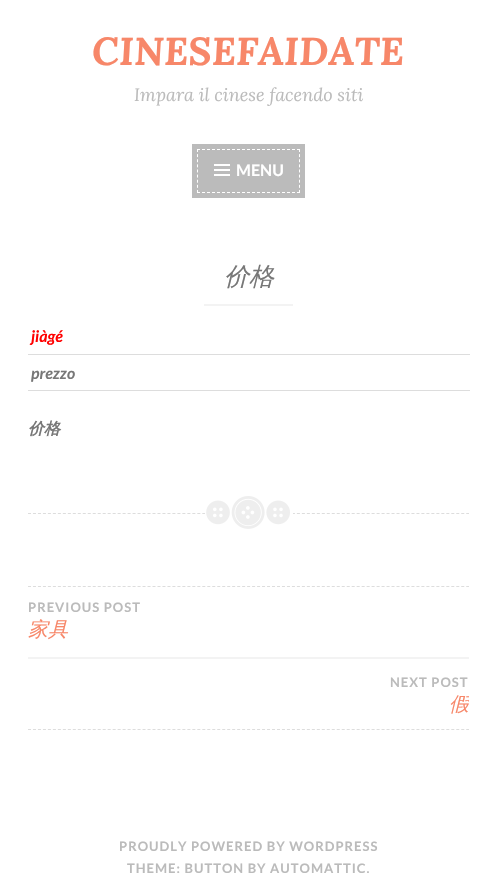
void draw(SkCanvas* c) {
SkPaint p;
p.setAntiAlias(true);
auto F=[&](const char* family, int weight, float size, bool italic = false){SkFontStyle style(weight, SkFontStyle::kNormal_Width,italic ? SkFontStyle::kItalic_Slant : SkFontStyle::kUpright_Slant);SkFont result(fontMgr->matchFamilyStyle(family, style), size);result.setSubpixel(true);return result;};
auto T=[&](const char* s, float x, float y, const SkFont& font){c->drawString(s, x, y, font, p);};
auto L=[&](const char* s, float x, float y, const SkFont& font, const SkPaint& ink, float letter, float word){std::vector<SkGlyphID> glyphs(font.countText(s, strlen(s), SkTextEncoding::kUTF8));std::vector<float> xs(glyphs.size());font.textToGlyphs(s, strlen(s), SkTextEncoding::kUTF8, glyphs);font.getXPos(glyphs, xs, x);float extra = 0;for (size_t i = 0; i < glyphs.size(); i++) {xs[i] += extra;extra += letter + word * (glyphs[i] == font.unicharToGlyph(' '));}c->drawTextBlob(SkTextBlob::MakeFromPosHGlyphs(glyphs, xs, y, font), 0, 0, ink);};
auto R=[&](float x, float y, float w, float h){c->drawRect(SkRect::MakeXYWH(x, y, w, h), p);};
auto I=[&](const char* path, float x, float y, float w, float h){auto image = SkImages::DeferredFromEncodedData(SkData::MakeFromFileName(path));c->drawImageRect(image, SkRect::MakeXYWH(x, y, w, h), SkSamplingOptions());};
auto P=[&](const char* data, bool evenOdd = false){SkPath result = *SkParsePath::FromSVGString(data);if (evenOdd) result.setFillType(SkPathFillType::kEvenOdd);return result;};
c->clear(0xffffffff);
auto f1 = F("Lora",700,39,true);
p.setColor(0xfff78769);
T("CINESEFAIDATE",92,65,f1);
auto f2 = F("Lora",400,18,true);
p.setColor(0xffbbbbbb);
T("Impara il cinese facendo siti",134,101,f2);
R(197,149,103,44);
p.setStroke(true);
p.setStrokeWidth(1);
p.setColor(0xffffffff);
p.setPathEffect(SkDashPathEffect::Make({{3,2}}, 0));
c->drawPath(P("M197 149.5h103"),p);
p.setPathEffect(nullptr);
p.setPathEffect(SkDashPathEffect::Make({{3,2.12f}}, 0));
c->drawPath(P("M299.5 149v44"),p);
p.setPathEffect(nullptr);
p.setPathEffect(SkDashPathEffect::Make({{3,2}}, 0));
c->drawPath(P("M197 192.5h103"),p);
p.setPathEffect(nullptr);
p.setPathEffect(SkDashPathEffect::Make({{3,2.12f}}, 0));
c->drawPath(P("M197.5 149v44"),p);
p.setPathEffect(nullptr);
p.setStrokeWidth(5);
p.setColor(0xffbbbbbb);
c->drawRect(SkRect::MakeXYWH(194.5,146.5,108,49),p);
I("1.png",214,164,16,12);
auto f3 = F("Lato",700,16);
p.setStroke(false);
p.setColor(0xffffffff);
T("MENU",236,176,f3);
p.setStroke(true);
p.setStrokeWidth(1);
p.setColor(0xffdddddd);
p.setPathEffect(SkDashPathEffect::Make({{3,1.98f}}, 0));
c->drawPath(P("M28 513.5h441"),p);
p.setPathEffect(nullptr);
auto f4 = F("WenQuanYi Zen Hei",500,25,true);
p.setStroke(false);
p.setColor(0xff777777);
T("价格",224,285,f4);
p.setColor(0xfff3f3f3);
R(204,304,89,2);
p.setColor(0xffdddddd);
R(28,354,442,1);
auto f5 = F("Lato",700,16,true);
p.setColor(0xffff0000);
T("jiàgé",31,342,f5);
p.setColor(0xffdddddd);
R(28,390,442,1);
p.setColor(0xff777777);
T("prezzo",31,379,f5);
auto f6 = F("WenQuanYi Zen Hei",700,16,true);
T("价格",28,434,f6);
p.setColor(0xffffffff);
R(205,513,88,1);
I("2.png",206,496,84,33);
p.setStroke(true);
p.setColor(0xffdddddd);
p.setPathEffect(SkDashPathEffect::Make({{3,1.98f}}, 0));
c->drawPath(P("M28 586.5h441"),p);
p.setPathEffect(nullptr);
p.setPathEffect(SkDashPathEffect::Make({{3,1.98f}}, 0));
c->drawPath(P("M28 729.5h441"),p);
p.setPathEffect(nullptr);
p.setStroke(false);
p.setColor(0xfff3f3f3);
R(28,657,441,2);
auto f7 = F("Lato",700,13);
p.setColor(0xffbbbbbb);
L("PREVIOUS POST",28,612,f7,p,1,0);
auto f8 = F("WenQuanYi Zen Hei",500,20,true);
p.setColor(0xfff78769);
T("家具",28,636,f8);
p.setColor(0xffbbbbbb);
L("NEXT POST",390,687,f7,p,1,0);
c->save();
c->clipRect(SkRect::MakeXYWH(28,587,441,142));
p.setColor(0xfff78769);
T("假",449,711,f8);
c->restore();
p.setColor(0xffbbbbbb);
L("PROUDLY POWERED BY WORDPRESS",119,851,f7,p,1,0);
L("THEME: BUTTON BY AUTOMATTIC.",127,873,f7,p,1,0);
}
